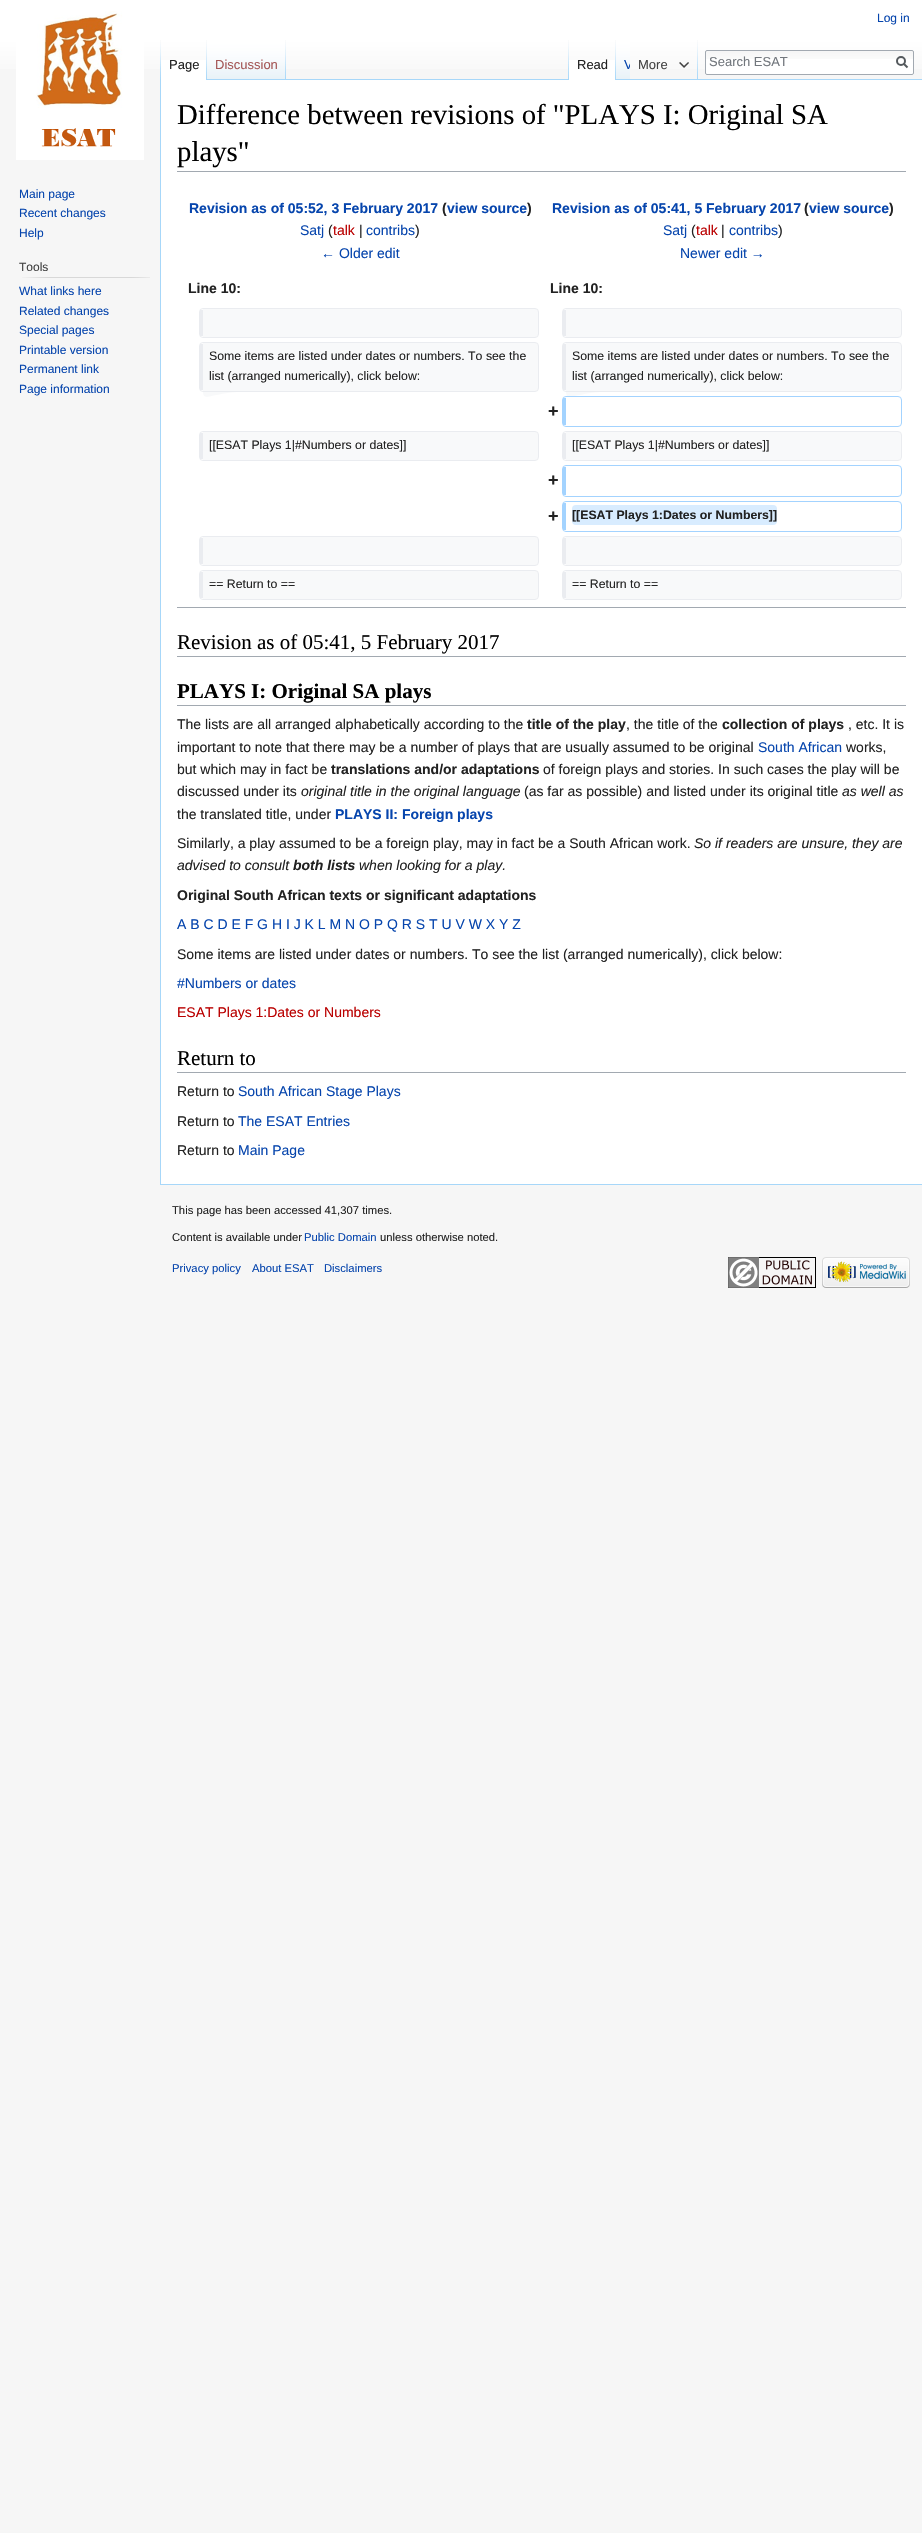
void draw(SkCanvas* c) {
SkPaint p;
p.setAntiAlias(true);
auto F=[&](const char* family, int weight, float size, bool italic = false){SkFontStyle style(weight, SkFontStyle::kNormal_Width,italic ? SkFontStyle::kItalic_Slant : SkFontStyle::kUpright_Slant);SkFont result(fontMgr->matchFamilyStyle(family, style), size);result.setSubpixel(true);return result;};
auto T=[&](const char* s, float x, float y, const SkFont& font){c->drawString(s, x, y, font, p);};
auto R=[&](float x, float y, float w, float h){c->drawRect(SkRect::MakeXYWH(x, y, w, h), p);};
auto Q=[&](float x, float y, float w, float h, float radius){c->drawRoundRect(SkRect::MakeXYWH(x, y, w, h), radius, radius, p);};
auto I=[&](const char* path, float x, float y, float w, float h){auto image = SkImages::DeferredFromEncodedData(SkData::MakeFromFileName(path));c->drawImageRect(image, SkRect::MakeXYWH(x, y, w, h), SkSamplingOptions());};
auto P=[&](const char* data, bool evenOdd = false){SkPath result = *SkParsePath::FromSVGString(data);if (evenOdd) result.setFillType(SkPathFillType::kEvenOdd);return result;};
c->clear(0xfff6f6f6);
{
const SkColor colors[] = {0xffffffff,0xfff6f6f6};
const float stops[] = {.5,1};
const SkPoint ends[] = {{461,0}, {461,80}};
p.setShader(SkGradientShader::MakeLinear(ends, colors, stops, 2, SkTileMode::kClamp));
p.setAlpha(255);
}
R(0,0,922,69);
auto f1 = F("Liberation Sans",400,12);
p.setShader(nullptr);
p.setColor(0xff0645ad);
T("Log in",877,22,f1);
I("1.png",160,40,1,39);
p.setColor(0xffffffff);
R(161,60,45,20);
I("2.png",206,40,1,40);
auto f2 = F("Liberation Sans",400,13);
p.setColor(0xff222222);
T("Page",169,69,f2);
I("3.png",207,40,78,39);
I("1.png",285,40,1,39);
p.setColor(0xffa55858);
T("Discussion",215,69,f2);
I("1.png",568,40,1,39);
p.setColor(0xffa7d7f9);
R(207,79,715,1);
p.setColor(0xffffffff);
R(569,60,46,20);
I("2.png",615,40,1,40);
p.setColor(0xff222222);
T("Read",577,69,f2);
I("4.png",616,40,14,39);
c->save();
c->clipRect(SkRect::MakeXYWH(616,40,14,40));
p.setColor(0xff0645ad);
T("V",624,69,f2);
c->restore();
I("1.png",697,40,1,39);
p.setColor(0xff444444);
T("More",638,69,f2);
I("5.png",679,62,10,6);
p.setColor(0xffffffff);
Q(705,50,209,25,2);
I("6.png",705,51,209,8);
p.setStroke(true);
p.setStrokeWidth(1);
p.setColor(0xffa2a9b1);
c->drawRoundRect(SkRect::MakeXYWH(705.5,50.5,208,24),1.5,1.5,p);
p.setStroke(false);
p.setColor(0xff72777d);
T("Search ESAT",709,66,f2);
p.setStroke(true);
p.setStrokeWidth(2);
p.setColor(0xff54595d);
c->drawPath(P("M907.5 67.5l-4-4"),p);
c->drawCircle(901,61,4,p);
I("7.png",16,11,128,149);
p.setStroke(false);
p.setColor(0xff0645ad);
T("Main page",19,198,f1);
T("Recent changes",19,217,f1);
T("Help",19,237,f1);
p.setColor(0xff444444);
T("Tools",19,271,f1);
I("8.png",22,277,128,1);
p.setColor(0xff0645ad);
T("What links here",19,295,f1);
T("Related changes",19,315,f1);
T("Special pages",19,334,f1);
T("Printable version",19,354,f1);
T("Permanent link",19,373,f1);
T("Page information",19,393,f1);
p.setColor(0xffffffff);
R(161,80,761,1104);
p.setColor(0xffa7d7f9);
R(160,1184,762,1);
R(160,79,1,1106);
p.setColor(0xffa2a9b1);
R(177,171,729,1);
auto f3 = F("Liberation Serif",400,28.8);
p.setColor(0xff000000);
T("Difference between revisions of \"PLAYS I: Original SA",177,124,f3);
T("plays\"",177,161,f3);
auto f4 = F("Liberation Sans",700,14);
p.setColor(0xff0645ad);
T("Revision as of 05:52, 3 February 2017",189,213,f4);
p.setColor(0xff222222);
T("(",442,213,f4);
p.setColor(0xff0645ad);
T("view source",447,213,f4);
p.setColor(0xff222222);
T(")",527,213,f4);
auto f5 = F("Liberation Sans",400,14);
p.setColor(0xff0645ad);
T("Satj",300,235,f5);
p.setColor(0xff222222);
T("(",328,235,f5);
p.setColor(0xffba0000);
T("talk",333,235,f5);
p.setColor(0xff222222);
T("|",359,235,f5);
p.setColor(0xff0645ad);
T("contribs",366,235,f5);
p.setColor(0xff222222);
T(")",415,235,f5);
p.setColor(0xff0645ad);
T("← Older edit",321,258,f5);
T("Revision as of 05:41, 5 February 2017",552,213,f4);
p.setColor(0xff222222);
T("(",804,213,f4);
p.setColor(0xff0645ad);
T("view source",809,213,f4);
p.setColor(0xff222222);
T(")",889,213,f4);
p.setColor(0xff0645ad);
T("Satj",663,235,f5);
p.setColor(0xff222222);
T("(",691,235,f5);
p.setColor(0xffba0000);
T("talk",696,235,f5);
p.setColor(0xff222222);
T("|",721,235,f5);
p.setColor(0xff0645ad);
T("contribs",729,235,f5);
p.setColor(0xff222222);
T(")",778,235,f5);
p.setColor(0xff0645ad);
T("Newer edit →",680,258,f5);
p.setColor(0xff222222);
T("Line 10:",188,293,f4);
T("Line 10:",550,293,f4);
p.setColor(0xfff8f9fa);
c->drawPath(P("M203 309h332c5 0 3 8 3 10v8c0 2 2 10-3 10h-332z"),p);
p.setStroke(true);
p.setStrokeWidth(1);
p.setColor(0xffeaecf0);
c->drawRoundRect(SkRect::MakeXYWH(199.5,308.5,339,29),3.5,3.5,p);
p.setStroke(false);
R(200,310,3,26);
p.setColor(0xfff8f9fa);
c->drawPath(P("M566 309h332c5 0 3 8 3 10v8c0 2 2 10-3 10h-332z"),p);
p.setStroke(true);
p.setColor(0xffeaecf0);
c->drawRoundRect(SkRect::MakeXYWH(562.5,308.5,339,29),3.5,3.5,p);
p.setStroke(false);
R(563,310,3,26);
p.setColor(0xfff8f9fa);
c->drawPath(P("M203 343h332c2 0 3 1 3 3v35c0 2 2 10-3 10h-277c-58 0-55 18-55-10z"),p);
p.setStroke(true);
p.setColor(0xffeaecf0);
c->drawRoundRect(SkRect::MakeXYWH(199.5,342.5,339,49),3.5,3.5,p);
p.setStroke(false);
R(200,344,3,46);
auto f6 = F("Liberation Sans",400,12.3);
p.setColor(0xff222222);
T("Some items are listed under dates or numbers. To see the",209,360,f6);
T("list (arranged numerically), click below:",209,380,f6);
p.setColor(0xfff8f9fa);
c->drawPath(P("M566 343h332c2 0 3 1 3 3v35c0 2 2 10-3 10h-277c-58 0-55 18-55-10z"),p);
p.setStroke(true);
p.setColor(0xffeaecf0);
c->drawRoundRect(SkRect::MakeXYWH(562.5,342.5,339,49),3.5,3.5,p);
p.setStroke(false);
R(563,344,3,46);
p.setColor(0xff222222);
T("Some items are listed under dates or numbers. To see the",572,360,f6);
T("list (arranged numerically), click below:",572,380,f6);
auto f7 = F("Liberation Sans",700,18);
T("+",548,417,f7);
p.setStroke(true);
p.setColor(0xffa3d3ff);
c->drawRoundRect(SkRect::MakeXYWH(562.5,396.5,339,30),3.5,3.5,p);
p.setStroke(false);
R(563,398,3,27);
p.setColor(0xfff8f9fa);
c->drawPath(P("M203 432h332c5 0 3 8 3 10v8c0 2 2 10-3 10h-332z"),p);
p.setStroke(true);
p.setColor(0xffeaecf0);
c->drawRoundRect(SkRect::MakeXYWH(199.5,431.5,339,29),3.5,3.5,p);
p.setStroke(false);
R(200,433,3,26);
p.setColor(0xff222222);
T("[[ESAT Plays 1|#Numbers or dates]]",209,449,f6);
p.setColor(0xfff8f9fa);
c->drawPath(P("M566 432h332c5 0 3 8 3 10v8c0 2 2 10-3 10h-332z"),p);
p.setStroke(true);
p.setColor(0xffeaecf0);
c->drawRoundRect(SkRect::MakeXYWH(562.5,431.5,339,29),3.5,3.5,p);
p.setStroke(false);
R(563,433,3,26);
p.setColor(0xff222222);
T("[[ESAT Plays 1|#Numbers or dates]]",572,449,f6);
T("+",548,486,f7);
p.setStroke(true);
p.setColor(0xffa3d3ff);
c->drawRoundRect(SkRect::MakeXYWH(562.5,465.5,339,31),3.5,3.5,p);
p.setStroke(false);
R(563,467,3,28);
p.setColor(0xff222222);
T("+",548,522,f7);
p.setStroke(true);
p.setColor(0xffa3d3ff);
c->drawRoundRect(SkRect::MakeXYWH(562.5,501.5,339,30),3.5,3.5,p);
p.setStroke(false);
R(563,503,3,27);
p.setColor(0xffd8ecff);
Q(572,505,205,20,4);
auto f8 = F("Liberation Sans",700,12.3);
p.setColor(0xff222222);
T("[[ESAT Plays 1:Dates or Numbers]]",572,519,f8);
p.setColor(0xfff8f9fa);
c->drawPath(P("M203 537h332c5 0 3 8 3 10v8c0 2 2 10-3 10h-332z"),p);
p.setStroke(true);
p.setColor(0xffeaecf0);
c->drawRoundRect(SkRect::MakeXYWH(199.5,536.5,339,29),3.5,3.5,p);
p.setStroke(false);
R(200,538,3,26);
p.setColor(0xfff8f9fa);
c->drawPath(P("M566 537h332c5 0 3 8 3 10v8c0 2 2 10-3 10h-332z"),p);
p.setStroke(true);
p.setColor(0xffeaecf0);
c->drawRoundRect(SkRect::MakeXYWH(562.5,536.5,339,29),3.5,3.5,p);
p.setStroke(false);
R(563,538,3,26);
p.setColor(0xfff8f9fa);
c->drawPath(P("M203 571h332c5 0 3 8 3 10v8c0 2 2 10-3 10h-332z"),p);
p.setStroke(true);
p.setColor(0xffeaecf0);
c->drawRoundRect(SkRect::MakeXYWH(199.5,570.5,339,29),3.5,3.5,p);
p.setStroke(false);
R(200,572,3,26);
p.setColor(0xff222222);
T("== Return to ==",209,588,f6);
p.setColor(0xfff8f9fa);
c->drawPath(P("M566 571h332c5 0 3 8 3 10v8c0 2 2 10-3 10h-332z"),p);
p.setStroke(true);
p.setColor(0xffeaecf0);
c->drawRoundRect(SkRect::MakeXYWH(562.5,570.5,339,29),3.5,3.5,p);
p.setStroke(false);
R(563,572,3,26);
p.setColor(0xff222222);
T("== Return to ==",572,588,f6);
p.setColor(0xffa2a9b1);
R(177,607,729,1);
R(177,656,729,1);
auto f9 = F("Liberation Serif",400,21);
p.setColor(0xff000000);
T("Revision as of 05:41, 5 February 2017",177,649,f9);
p.setColor(0xffa2a9b1);
R(177,705,729,1);
auto f10 = F("Liberation Serif",700,21);
p.setColor(0xff000000);
T("PLAYS I: Original SA plays",177,698,f10);
p.setColor(0xff222222);
T("The lists are all arranged alphabetically according to the",177,729,f5);
T("title of the play",527,729,f4);
T(", the title of the",626,729,f5);
T("collection of plays",722,729,f4);
T(", etc. It is",848,729,f5);
T("important to note that there may be a number of plays that are usually assumed to be original",177,752,f5);
p.setColor(0xff0645ad);
T("South African",758,752,f5);
p.setColor(0xff222222);
T("works,",846,752,f5);
T("but which may in fact be",177,774,f5);
T("translations and/or adaptations",331,774,f4);
T("of foreign plays and stories. In such cases the play will be",543,774,f5);
T("discussed under its",177,796,f5);
auto f11 = F("Liberation Sans",400,14,true);
T("original title in the original language",301,796,f11);
T("(as far as possible) and listed under its original title",524,796,f5);
T("as well as",842,796,f11);
T("the translated title, under",177,819,f5);
p.setColor(0xff0645ad);
T("PLAYS II: Foreign plays",335,819,f4);
p.setColor(0xff222222);
T("Similarly, a play assumed to be a foreign play, may in fact be a South African work.",177,848,f5);
T("So if readers are unsure, they are",694,848,f11);
T("advised to consult",177,870,f11);
auto f12 = F("Liberation Sans",700,14,true);
T("both lists",293,870,f12);
T("when looking for a play.",359,870,f11);
T("Original South African texts or significant adaptations",177,900,f4);
p.setColor(0xff0645ad);
T("A B C D E F G H I J K L M N O P Q R S T U V W X Y Z",177,929,f5);
p.setColor(0xff222222);
T("Some items are listed under dates or numbers. To see the list (arranged numerically), click below:",177,959,f5);
p.setColor(0xff0645ad);
T("#Numbers or dates",177,988,f5);
p.setColor(0xffba0000);
T("ESAT Plays 1:Dates or Numbers",177,1017,f5);
p.setColor(0xffa2a9b1);
R(177,1072,729,1);
p.setColor(0xff000000);
T("Return to",177,1065,f9);
p.setColor(0xff222222);
T("Return to",177,1096,f5);
p.setColor(0xff0645ad);
T("South African Stage Plays",238,1096,f5);
p.setColor(0xff222222);
T("Return to",177,1126,f5);
p.setColor(0xff0645ad);
T("The ESAT Entries",238,1126,f5);
p.setColor(0xff222222);
T("Return to",177,1155,f5);
p.setColor(0xff0645ad);
T("Main Page",238,1155,f5);
auto f13 = F("Liberation Sans",400,11.25);
p.setColor(0xff222222);
T("This page has been accessed 41,307 times.",172,1214,f13);
T("Content is available under",172,1241,f13);
p.setColor(0xff0645ad);
T("Public Domain",304,1241,f13);
p.setColor(0xff222222);
T("unless otherwise noted.",380,1241,f13);
p.setColor(0xff0645ad);
T("Privacy policy",172,1272,f13);
T("About ESAT",252,1272,f13);
T("Disclaimers",324,1272,f13);
I("9.png",728,1257,88,31);
I("10.png",822,1257,88,31);
}
